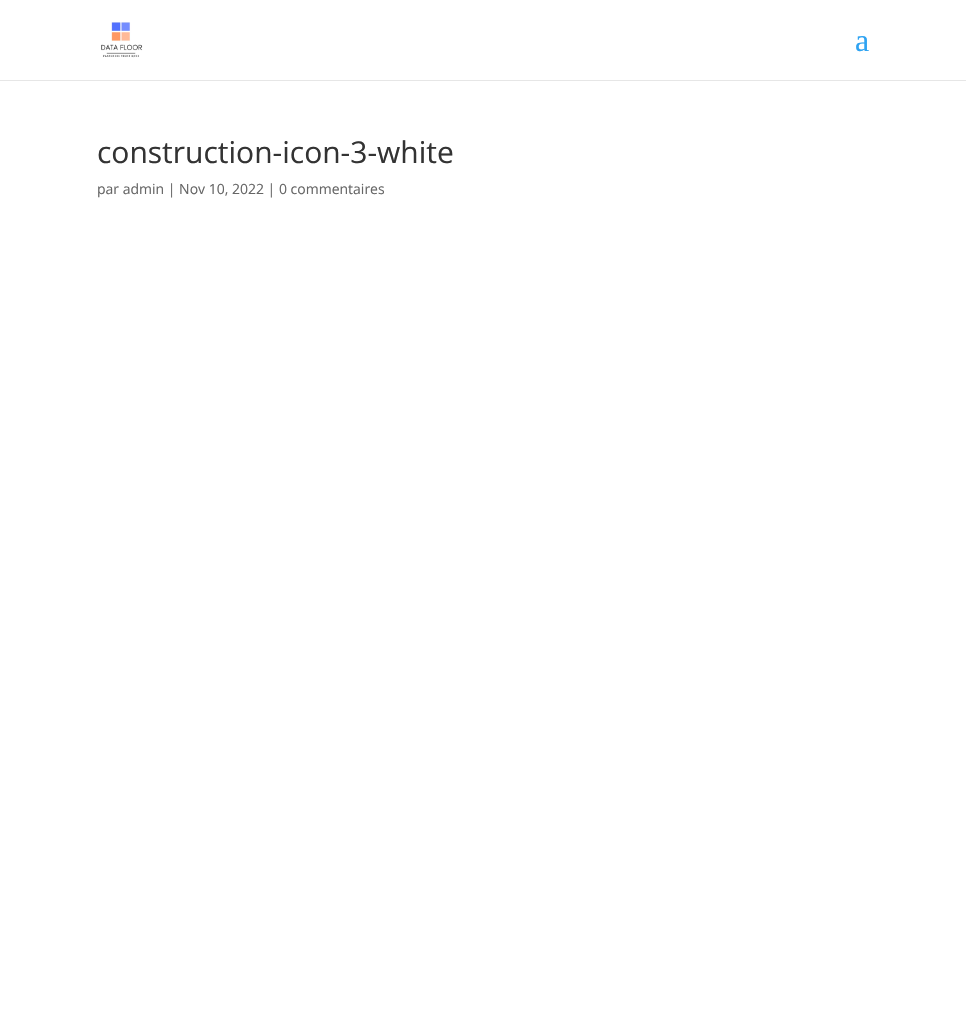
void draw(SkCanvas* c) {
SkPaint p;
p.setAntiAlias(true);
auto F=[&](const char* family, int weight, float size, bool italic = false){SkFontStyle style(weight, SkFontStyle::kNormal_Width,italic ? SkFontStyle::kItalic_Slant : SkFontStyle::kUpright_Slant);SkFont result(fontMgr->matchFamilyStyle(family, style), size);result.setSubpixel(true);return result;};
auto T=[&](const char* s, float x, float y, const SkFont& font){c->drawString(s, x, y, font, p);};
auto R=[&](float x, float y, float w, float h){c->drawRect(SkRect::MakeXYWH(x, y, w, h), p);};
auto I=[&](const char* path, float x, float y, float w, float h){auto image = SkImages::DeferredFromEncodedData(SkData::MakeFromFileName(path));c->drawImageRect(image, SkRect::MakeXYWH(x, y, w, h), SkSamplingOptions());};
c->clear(0xffffffff);
p.setColor(0xffe6e6e6);
R(0,80,966,1);
I("1.png",101,22,42,36);
auto f1 = F("Liberation Serif",400,32);
p.setColor(0xff2ea3f2);
T("a",855,51,f1);
auto f2 = F("Open Sans",400,30);
p.setColor(0xff333333);
T("construction-icon-3-white",97,163,f2);
auto f3 = F("Open Sans",400,14);
p.setColor(0xff666666);
T("par admin | Nov 10, 2022 | 0 commentaires",97,194,f3);
}
